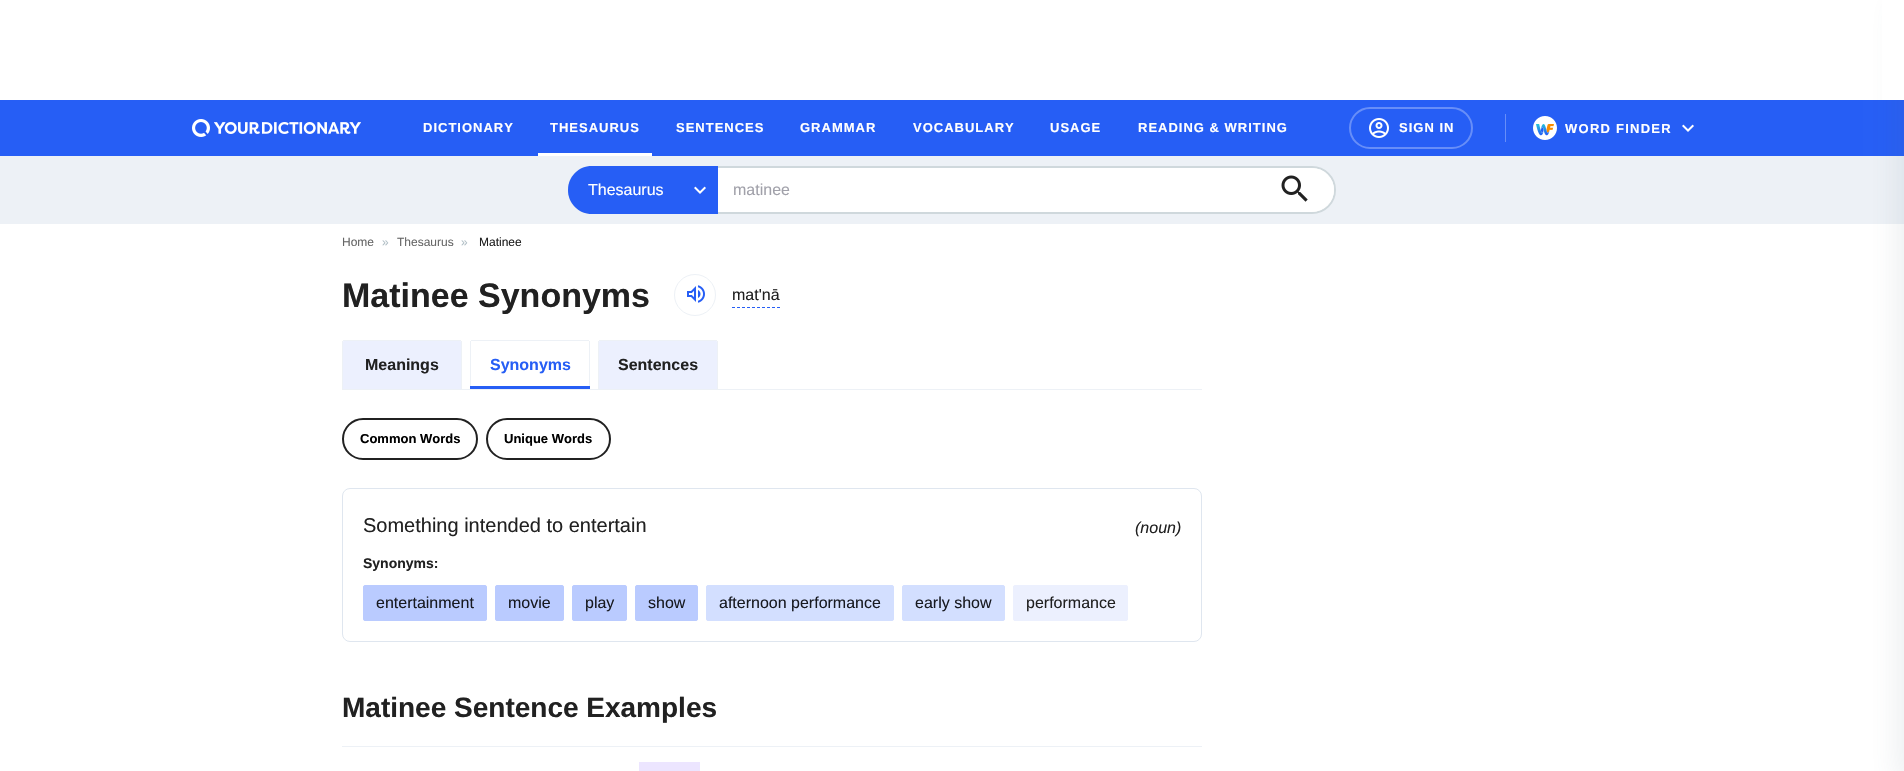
void draw(SkCanvas* c) {
SkPaint p;
p.setAntiAlias(true);
auto F=[&](const char* family, int weight, float size, bool italic = false){SkFontStyle style(weight, SkFontStyle::kNormal_Width,italic ? SkFontStyle::kItalic_Slant : SkFontStyle::kUpright_Slant);SkFont result(fontMgr->matchFamilyStyle(family, style), size);result.setSubpixel(true);return result;};
auto T=[&](const char* s, float x, float y, const SkFont& font){c->drawString(s, x, y, font, p);};
auto L=[&](const char* s, float x, float y, const SkFont& font, const SkPaint& ink, float letter, float word){std::vector<SkGlyphID> glyphs(font.countText(s, strlen(s), SkTextEncoding::kUTF8));std::vector<float> xs(glyphs.size());font.textToGlyphs(s, strlen(s), SkTextEncoding::kUTF8, glyphs);font.getXPos(glyphs, xs, x);float extra = 0;for (size_t i = 0; i < glyphs.size(); i++) {xs[i] += extra;extra += letter + word * (glyphs[i] == font.unicharToGlyph(' '));}c->drawTextBlob(SkTextBlob::MakeFromPosHGlyphs(glyphs, xs, y, font), 0, 0, ink);};
auto R=[&](float x, float y, float w, float h){c->drawRect(SkRect::MakeXYWH(x, y, w, h), p);};
auto Q=[&](float x, float y, float w, float h, float radius){c->drawRoundRect(SkRect::MakeXYWH(x, y, w, h), radius, radius, p);};
auto I=[&](const char* path, float x, float y, float w, float h){auto image = SkImages::DeferredFromEncodedData(SkData::MakeFromFileName(path));c->drawImageRect(image, SkRect::MakeXYWH(x, y, w, h), SkSamplingOptions());};
auto P=[&](const char* data, bool evenOdd = false){SkPath result = *SkParsePath::FromSVGString(data);if (evenOdd) result.setFillType(SkPathFillType::kEvenOdd);return result;};
c->clear(0xffffffff);
p.setColor(0xff265ef5);
R(0,100,1904,56);
p.setColor(0xffedf1f6);
R(0,156,1904,68);
p.setColor(0x1f546e7a);
p.setMaskFilter(SkMaskFilter::MakeBlur(kNormal_SkBlurStyle, 15));
c->drawRect(SkRect::MakeXYWH(1899,1,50,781),p);
p.setMaskFilter(nullptr);
p.setColor(0xffffffff);
R(1882,0,22,100);
I("1.png",192,119,169,18);
auto f1 = F("Liberation Sans",700,13);
L("DICTIONARY",423,132,f1,p,1,0);
L("THESAURUS",550,132,f1,p,1,0);
R(538,153,114,3);
L("SENTENCES",676,132,f1,p,1,0);
L("GRAMMAR",800,132,f1,p,1,0);
L("VOCABULARY",913,132,f1,p,1,0);
L("USAGE",1050,132,f1,p,1,0);
L("READING & WRITING",1138,132,f1,p,1,0);
p.setStroke(true);
p.setStrokeWidth(2);
p.setColor(0xff678ef8);
c->drawRoundRect(SkRect::MakeXYWH(1350,108,122,40),20,20,p);
I("2.png",1369,118,20,20);
p.setStroke(false);
p.setColor(0xffffffff);
L("SIGN IN",1399,132,f1,p,1,0);
p.setColor(0xff678ef8);
R(1505,114,1,28);
I("3.png",1533,116,24,24);
p.setColor(0xffffffff);
L("WORD FINDER",1565,133,f1,p,1.25,0);
I("4.png",1682,124,12,8);
c->drawRoundRect(SkRect::MakeXYWH(569,167,766,46),23,23,p);
p.setStroke(true);
p.setColor(0xffcfd8dc);
c->drawRoundRect(SkRect::MakeXYWH(569,167,766,46),23,23,p);
p.setStroke(false);
p.setColor(0xff265ef5);
c->drawPath(P("M592 166h126v48h-126c-13.5 0-24-10.5-24-24c0-13.5 10.5-24 24-24z"),p);
auto f2 = F("Liberation Sans",400,16);
p.setColor(0xffffffff);
T("Thesaurus",588,195,f2);
I("4.png",694,186,12,8);
p.setColor(0xffa1a1aa);
T("matinee",733,195,f2);
p.setColor(0xffffffff);
Q(1274,168,60,44,22);
I("5.png",1281,175,27,27);
auto f3 = F("Liberation Sans",400,12);
p.setColor(0xff666666);
T("Home",342,246,f3);
p.setColor(0xffb0bec5);
T("»",382,246,f3);
p.setColor(0xff666666);
T("Thesaurus",397,246,f3);
p.setColor(0xffb0bec5);
T("»",461,246,f3);
p.setColor(0xff212121);
T("Matinee",479,246,f3);
auto f4 = F("Liberation Sans",700,34);
T("Matinee Synonyms",342,307,f4);
p.setStroke(true);
p.setStrokeWidth(1);
p.setColor(0xffedf1f6);
c->drawCircle(695,295,20.5,p);
I("6.png",687,285,18,18);
p.setColor(0xff265ef5);
p.setPathEffect(SkDashPathEffect::Make({{3,2}}, 0));
c->drawPath(P("M732 307.5h48"),p);
p.setPathEffect(nullptr);
p.setStroke(false);
p.setColor(0xff212121);
T("mat'nā",732,300,f2);
p.setColor(0xffedf1f6);
R(342,389,860,1);
p.setColor(0xffecf0fe);
c->drawPath(P("M344 341h116c.5 0 1 .5 1 1v47h-118v-47c0-.5 .5-1 1-1z"),p);
p.setColor(0xffedf1f6);
R(343,340,118,1);
R(461,341,1,48);
R(342,341,1,48);
auto f5 = F("Liberation Sans",700,16);
p.setColor(0xff212121);
T("Meanings",365,370,f5);
p.setColor(0xffedf1f6);
R(471,340,118,1);
R(589,341,1,48);
R(470,341,1,48);
p.setColor(0xff265ef5);
T("Synonyms",490,370,f5);
R(470,386,120,3);
p.setColor(0xffecf0fe);
c->drawPath(P("M600 341h116c.5 0 1 .5 1 1v47h-118v-47c0-.5 .5-1 1-1z"),p);
p.setColor(0xffedf1f6);
R(599,340,118,1);
R(717,341,1,48);
R(598,341,1,48);
p.setColor(0xff212121);
T("Sentences",618,370,f5);
p.setStroke(true);
p.setStrokeWidth(2);
c->drawRoundRect(SkRect::MakeXYWH(343,419,134,40),20,20,p);
p.setStroke(false);
p.setColor(0xff000000);
T("Common Words",360,443,f1);
p.setStroke(true);
p.setColor(0xff212121);
c->drawRoundRect(SkRect::MakeXYWH(487,419,123,40),20,20,p);
p.setStroke(false);
p.setColor(0xff000000);
T("Unique Words",504,443,f1);
p.setStroke(true);
p.setStrokeWidth(1);
p.setColor(0xffdfe6ef);
c->drawRoundRect(SkRect::MakeXYWH(342.5,488.5,859,153),7.5,7.5,p);
auto f6 = F("Liberation Sans",400,20);
p.setStroke(false);
p.setColor(0xff212121);
T("Something intended to entertain",363,532,f6);
auto f7 = F("Liberation Sans",400,16,true);
T("(noun)",1135,533,f7);
auto f8 = F("Liberation Sans",700,14);
T("Synonyms:",363,568,f8);
p.setColor(0xffbacbff);
c->drawRoundRect(SkRect::MakeXYWH(363.5,585.5,123,35),1.5,1.5,p);
p.setStroke(true);
c->drawRoundRect(SkRect::MakeXYWH(363.5,585.5,123,35),1.5,1.5,p);
p.setStroke(false);
p.setColor(0xff181a21);
T("entertainment",376,608,f2);
p.setColor(0xffbacbff);
c->drawRoundRect(SkRect::MakeXYWH(495.5,585.5,68,35),1.5,1.5,p);
p.setStroke(true);
c->drawRoundRect(SkRect::MakeXYWH(495.5,585.5,68,35),1.5,1.5,p);
p.setStroke(false);
p.setColor(0xff181a21);
T("movie",508,608,f2);
p.setColor(0xffbacbff);
c->drawRoundRect(SkRect::MakeXYWH(572.5,585.5,54,35),1.5,1.5,p);
p.setStroke(true);
c->drawRoundRect(SkRect::MakeXYWH(572.5,585.5,54,35),1.5,1.5,p);
p.setStroke(false);
p.setColor(0xff181a21);
T("play",585,608,f2);
p.setColor(0xffbacbff);
c->drawRoundRect(SkRect::MakeXYWH(635.5,585.5,62,35),1.5,1.5,p);
p.setStroke(true);
c->drawRoundRect(SkRect::MakeXYWH(635.5,585.5,62,35),1.5,1.5,p);
p.setStroke(false);
p.setColor(0xff181a21);
T("show",648,608,f2);
p.setColor(0xffd3dfff);
c->drawRoundRect(SkRect::MakeXYWH(706.5,585.5,187,35),1.5,1.5,p);
p.setStroke(true);
c->drawRoundRect(SkRect::MakeXYWH(706.5,585.5,187,35),1.5,1.5,p);
p.setStroke(false);
p.setColor(0xff181a21);
T("afternoon performance",719,608,f2);
p.setColor(0xffd3dfff);
c->drawRoundRect(SkRect::MakeXYWH(902.5,585.5,102,35),1.5,1.5,p);
p.setStroke(true);
c->drawRoundRect(SkRect::MakeXYWH(902.5,585.5,102,35),1.5,1.5,p);
p.setStroke(false);
p.setColor(0xff181a21);
T("early show",915,608,f2);
p.setColor(0xffecf0fe);
c->drawRoundRect(SkRect::MakeXYWH(1013.5,585.5,114,35),1.5,1.5,p);
p.setStroke(true);
c->drawRoundRect(SkRect::MakeXYWH(1013.5,585.5,114,35),1.5,1.5,p);
p.setStroke(false);
p.setColor(0xff212121);
T("performance",1026,608,f2);
p.setColor(0xffedf1f6);
R(342,746,860,1);
auto f9 = F("Liberation Sans",700,28);
p.setColor(0xff212121);
T("Matinee Sentence Examples",342,717,f9);
p.setColor(0xffece5ff);
R(639,762,61,9);
}
